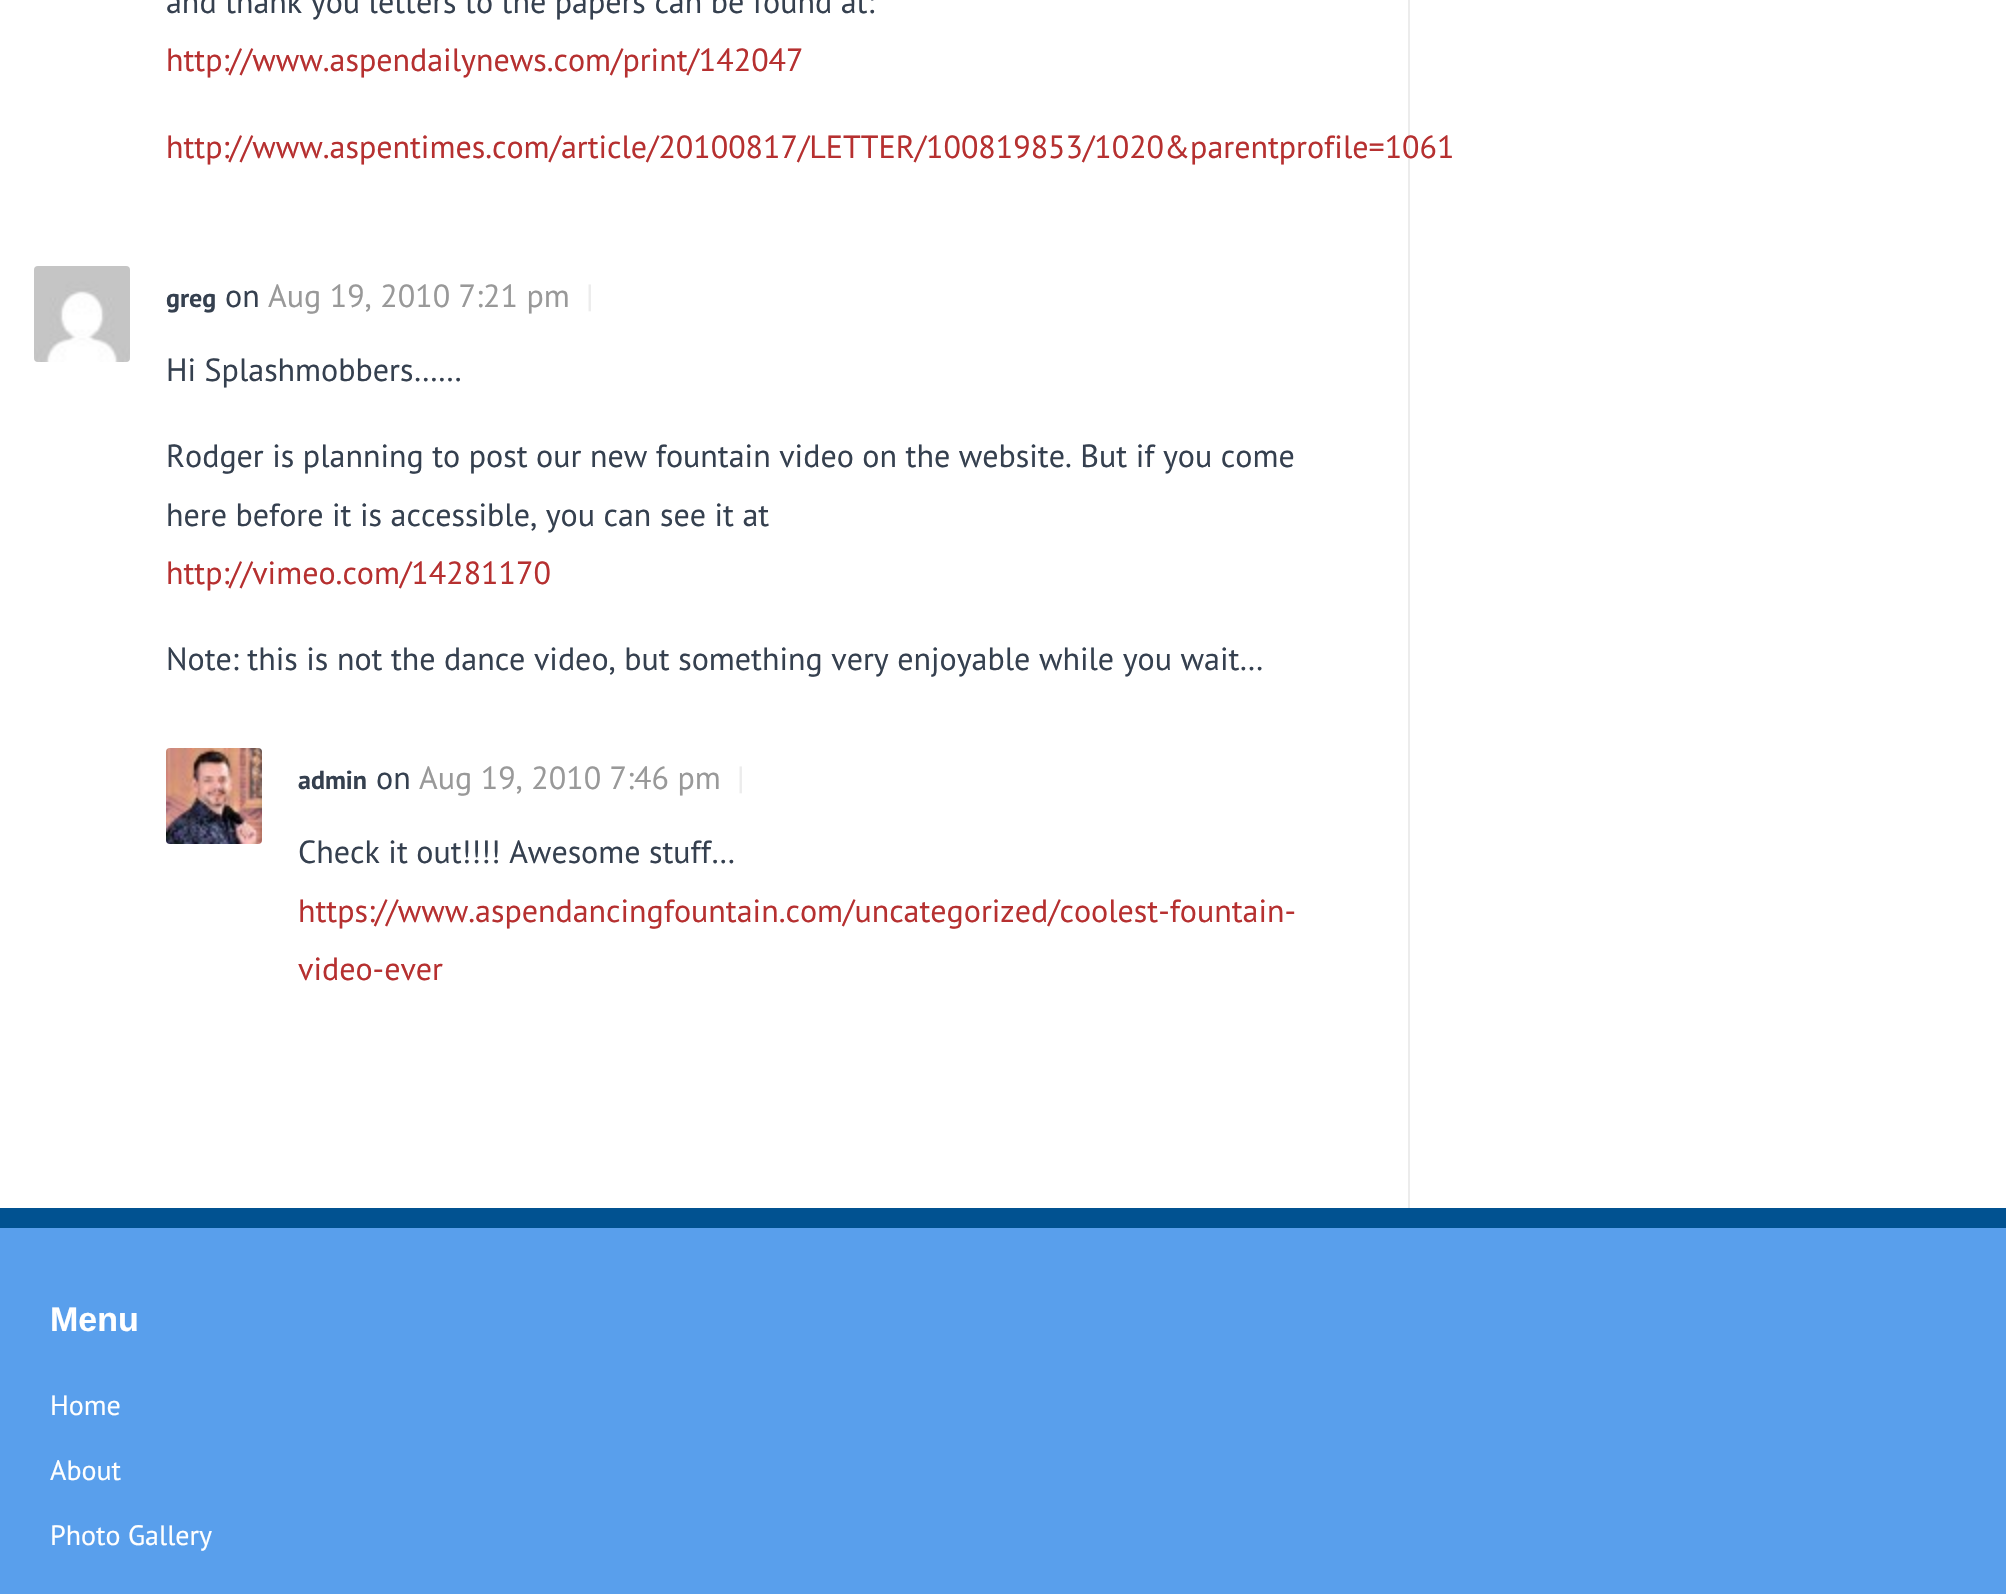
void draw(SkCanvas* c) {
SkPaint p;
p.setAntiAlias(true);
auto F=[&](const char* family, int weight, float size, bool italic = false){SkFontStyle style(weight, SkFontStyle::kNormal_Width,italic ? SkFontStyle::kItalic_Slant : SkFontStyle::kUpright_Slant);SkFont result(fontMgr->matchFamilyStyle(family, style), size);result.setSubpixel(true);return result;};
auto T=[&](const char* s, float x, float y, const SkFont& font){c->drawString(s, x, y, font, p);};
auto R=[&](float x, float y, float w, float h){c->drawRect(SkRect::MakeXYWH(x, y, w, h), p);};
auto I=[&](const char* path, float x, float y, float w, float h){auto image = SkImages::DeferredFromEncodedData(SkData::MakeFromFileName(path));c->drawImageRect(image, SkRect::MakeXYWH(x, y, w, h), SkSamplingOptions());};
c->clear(0xffffffff);
p.setColor(0xffececec);
R(1408,0,2,1208);
auto f1 = F("PT Sans",400,32);
p.setColor(0xff35404f);
T("and thank you letters to the papers can be found at:",166,13,f1);
p.setColor(0xffb63030);
T("http://www.aspendailynews.com/print/142047",166,71,f1);
T("http://www.aspentimes.com/article/20100817/LETTER/100819853/1020&parentprofile=1061",166,158,f1);
I("1.png",34,266,96,96);
auto f2 = F("PT Sans",700,26);
p.setColor(0xff35404f);
T("greg",166,307,f2);
T("on",225,307,f1);
p.setColor(0xff999999);
T("Aug 19, 2010 7:21 pm",268,307,f1);
p.setColor(0xffececec);
T("|",586,307,f1);
p.setColor(0xff35404f);
T("Hi Splashmobbers……",166,381,f1);
T("Rodger is planning to post our new fountain video on the website. But if you come",166,467,f1);
T("here before it is accessible, you can see it at",166,526,f1);
p.setColor(0xffb63030);
T("http://vimeo.com/14281170",166,584,f1);
p.setColor(0xff35404f);
T("Note: this is not the dance video, but something very enjoyable while you wait…",166,670,f1);
I("2.png",166,748,96,96);
T("admin",298,789,f2);
T("on",376,789,f1);
p.setColor(0xff999999);
T("Aug 19, 2010 7:46 pm",419,789,f1);
p.setColor(0xffececec);
T("|",737,789,f1);
p.setColor(0xff35404f);
T("Check it out!!!! Awesome stuff…",298,863,f1);
p.setColor(0xffb63030);
T("https://www.aspendancingfountain.com/uncategorized/coolest-fountain-",298,922,f1);
T("video-ever",298,980,f1);
p.setColor(0xff599fec);
R(0,1228,2006,366);
p.setColor(0xff015291);
R(0,1208,2006,20);
auto f3 = F("Liberation Sans",700,34);
p.setColor(0xffffffff);
T("Menu",50,1331,f3);
auto f4 = F("PT Sans",400,28);
T("Home",50,1415,f4);
T("About",50,1480,f4);
T("Photo Gallery",50,1545,f4);
}
